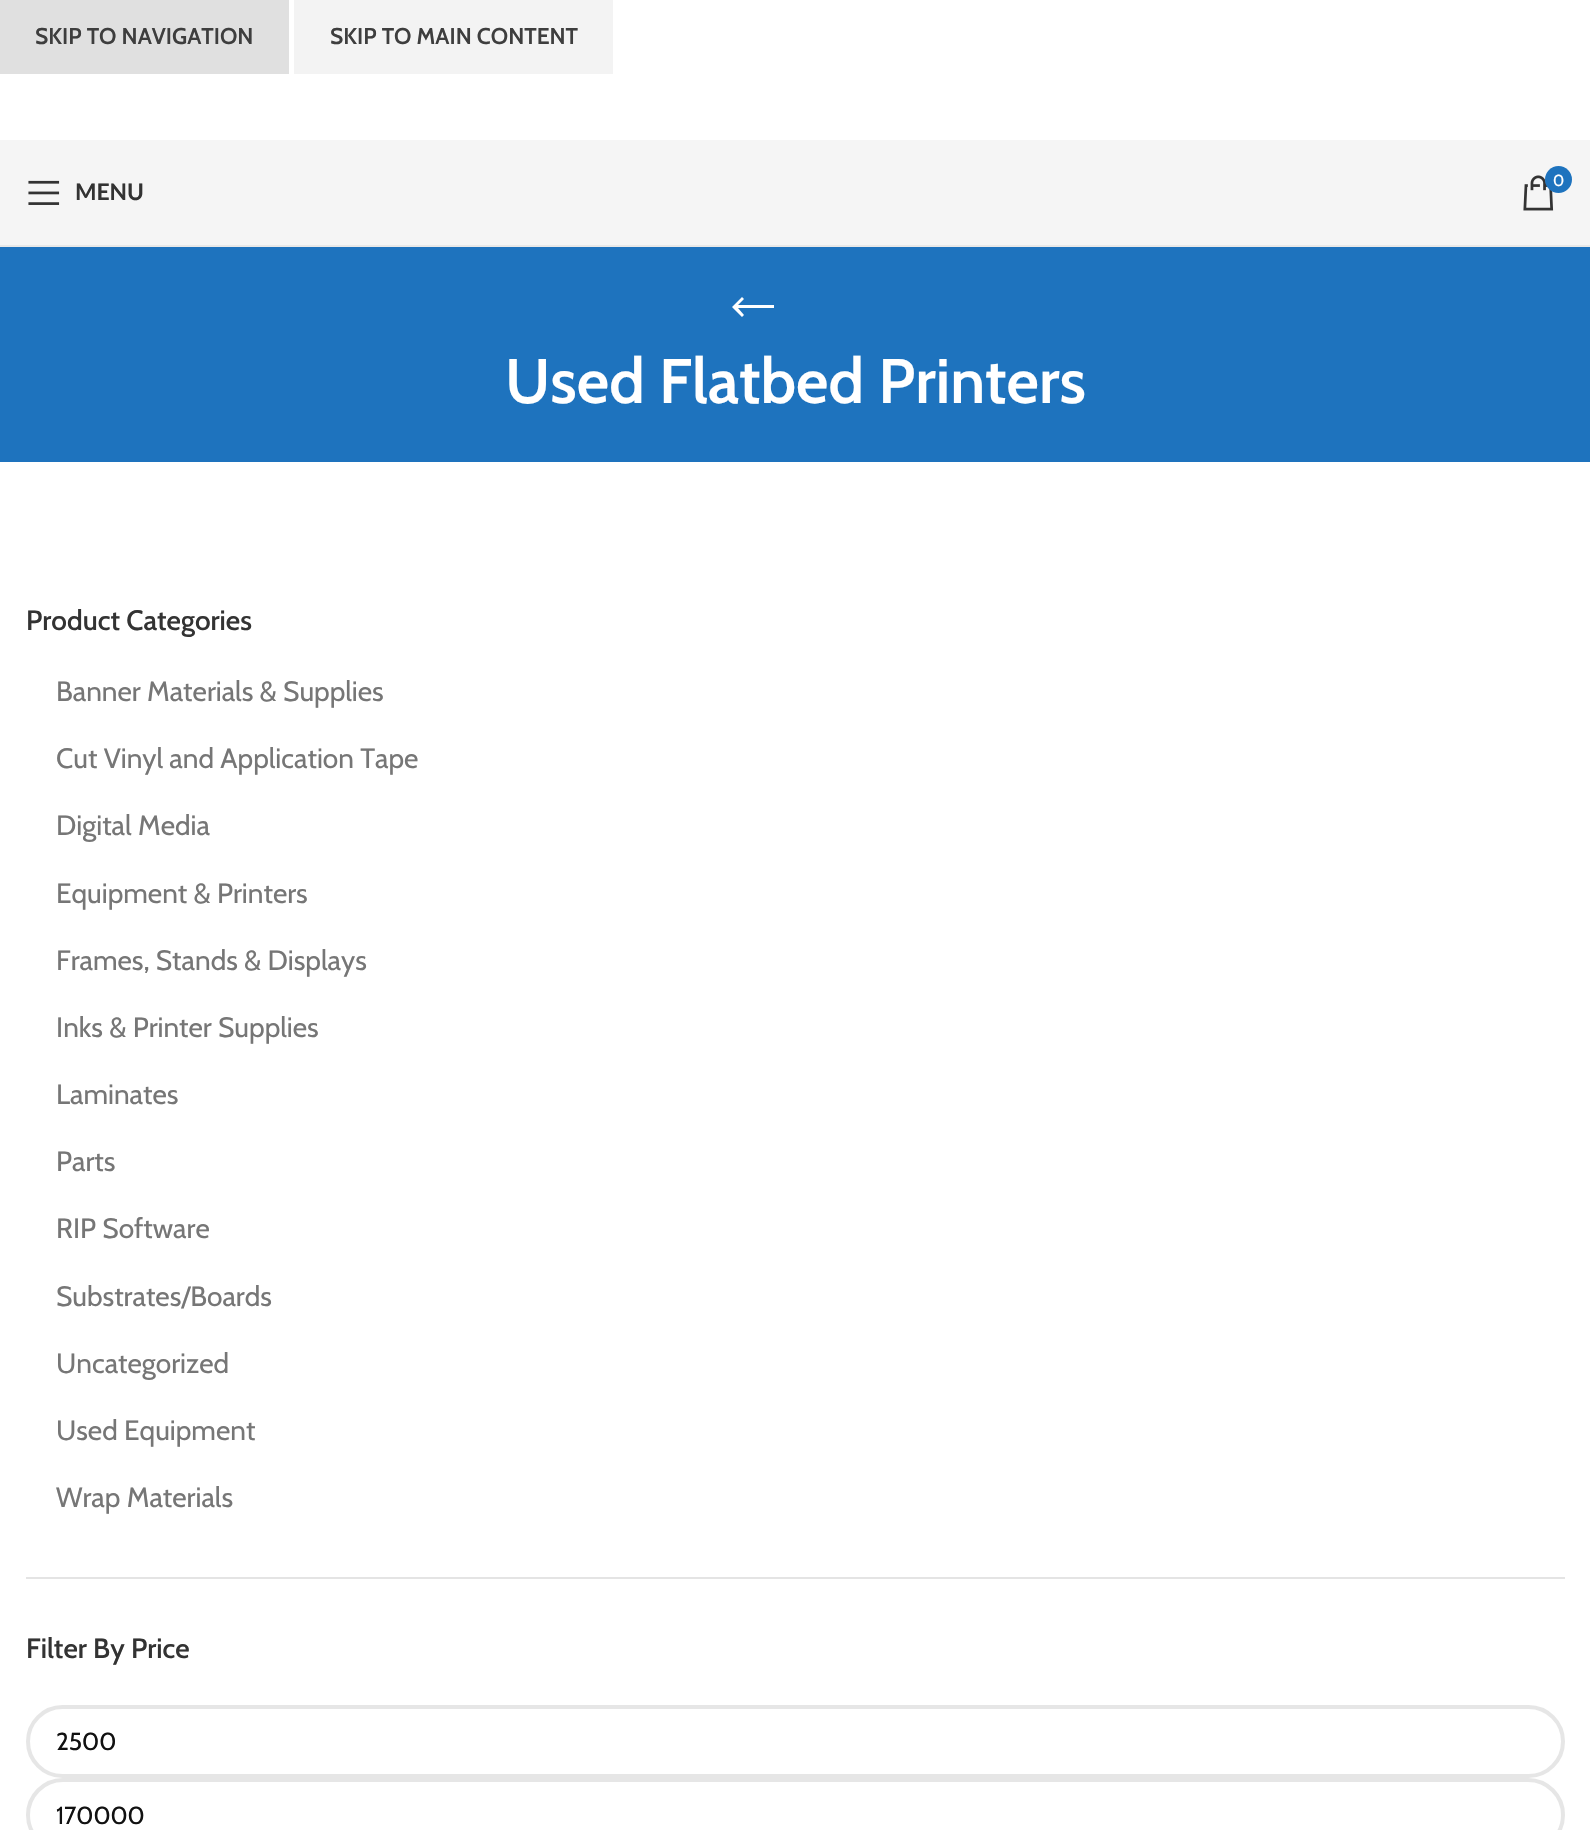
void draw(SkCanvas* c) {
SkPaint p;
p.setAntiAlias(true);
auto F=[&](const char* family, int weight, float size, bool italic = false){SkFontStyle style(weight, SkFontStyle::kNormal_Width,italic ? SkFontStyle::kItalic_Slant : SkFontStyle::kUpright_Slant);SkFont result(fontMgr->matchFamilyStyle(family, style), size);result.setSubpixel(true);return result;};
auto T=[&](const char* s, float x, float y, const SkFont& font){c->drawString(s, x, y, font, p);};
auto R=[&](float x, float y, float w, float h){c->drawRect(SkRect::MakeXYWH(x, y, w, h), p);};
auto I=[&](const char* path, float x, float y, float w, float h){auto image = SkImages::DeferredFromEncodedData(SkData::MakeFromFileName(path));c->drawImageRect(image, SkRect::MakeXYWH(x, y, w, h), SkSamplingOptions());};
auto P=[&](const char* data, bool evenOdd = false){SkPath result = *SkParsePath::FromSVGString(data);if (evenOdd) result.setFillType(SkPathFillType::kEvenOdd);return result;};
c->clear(0xffffffff);
p.setColor(0xffe0e0e0);
R(0,0,289,74);
auto f1 = F("Cabin",600,22.75);
p.setColor(0xff3e3e3e);
T("SKIP TO NAVIGATION",35,44,f1);
p.setColor(0xfff3f3f3);
R(294,0,319,74);
p.setColor(0xff3e3e3e);
T("SKIP TO MAIN CONTENT",330,44,f1);
p.setColor(0xfff5f5f5);
R(0,140,1590,105);
p.setColor(0xffe8e8e8);
R(0,245,1590,2);
I("1.png",1523,175,31,36);
p.setColor(0xff1e73be);
c->drawCircle(1558.5,179.5,13.5,p);
auto f2 = F("Cabin",400,16);
p.setColor(0xffffffff);
T("0",1553,186,f2);
I("2.png",28,180,32,25);
auto f3 = F("Lato",700,22.75);
p.setColor(0xff333333);
T("MENU",75,200,f3);
p.setColor(0xff1e73be);
R(0,247,1590,215);
p.setColor(0xffffffff);
c->drawPath(P("M744 315l-6-7h36v-3h-36l6-6l-2-2l-10 10l10 10z"),p);
auto f4 = F("Cabin",600,63);
T("Used Flatbed Printers",505,403,f4);
p.setColor(0xffe4e4e4);
R(26,1577,1539,2);
auto f5 = F("Cabin",500,28);
p.setColor(0xff333333);
T("Product Categories",26,630,f5);
auto f6 = F("Cabin",400,28);
p.setColor(0xff767676);
T("Banner Materials & Supplies",56,701,f6);
T("Cut Vinyl and Application Tape",56,768,f6);
T("Digital Media",56,835,f6);
T("Equipment & Printers",56,903,f6);
T("Frames, Stands & Displays",56,970,f6);
T("Inks & Printer Supplies",56,1037,f6);
T("Laminates",56,1104,f6);
T("Parts",56,1171,f6);
T("RIP Software",56,1238,f6);
T("Substrates/Boards",56,1306,f6);
T("Uncategorized",56,1373,f6);
T("Used Equipment",56,1440,f6);
T("Wrap Materials",56,1507,f6);
p.setColor(0xff333333);
T("Filter By Price",26,1658,f5);
p.setStroke(true);
p.setStrokeWidth(4);
p.setColor(0xffe6e6e6);
c->drawRoundRect(SkRect::MakeXYWH(28,1707,1535,69),34.5,34.5,p);
auto f7 = F("Cabin",400,24.5);
p.setStroke(false);
p.setColor(0xff111111);
T("2500",56,1750,f7);
p.setStroke(true);
p.setColor(0xffe6e6e6);
c->drawRoundRect(SkRect::MakeXYWH(28,1780,1535,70),35,35,p);
p.setStroke(false);
p.setColor(0xff111111);
T("170000",56,1824,f7);
}
